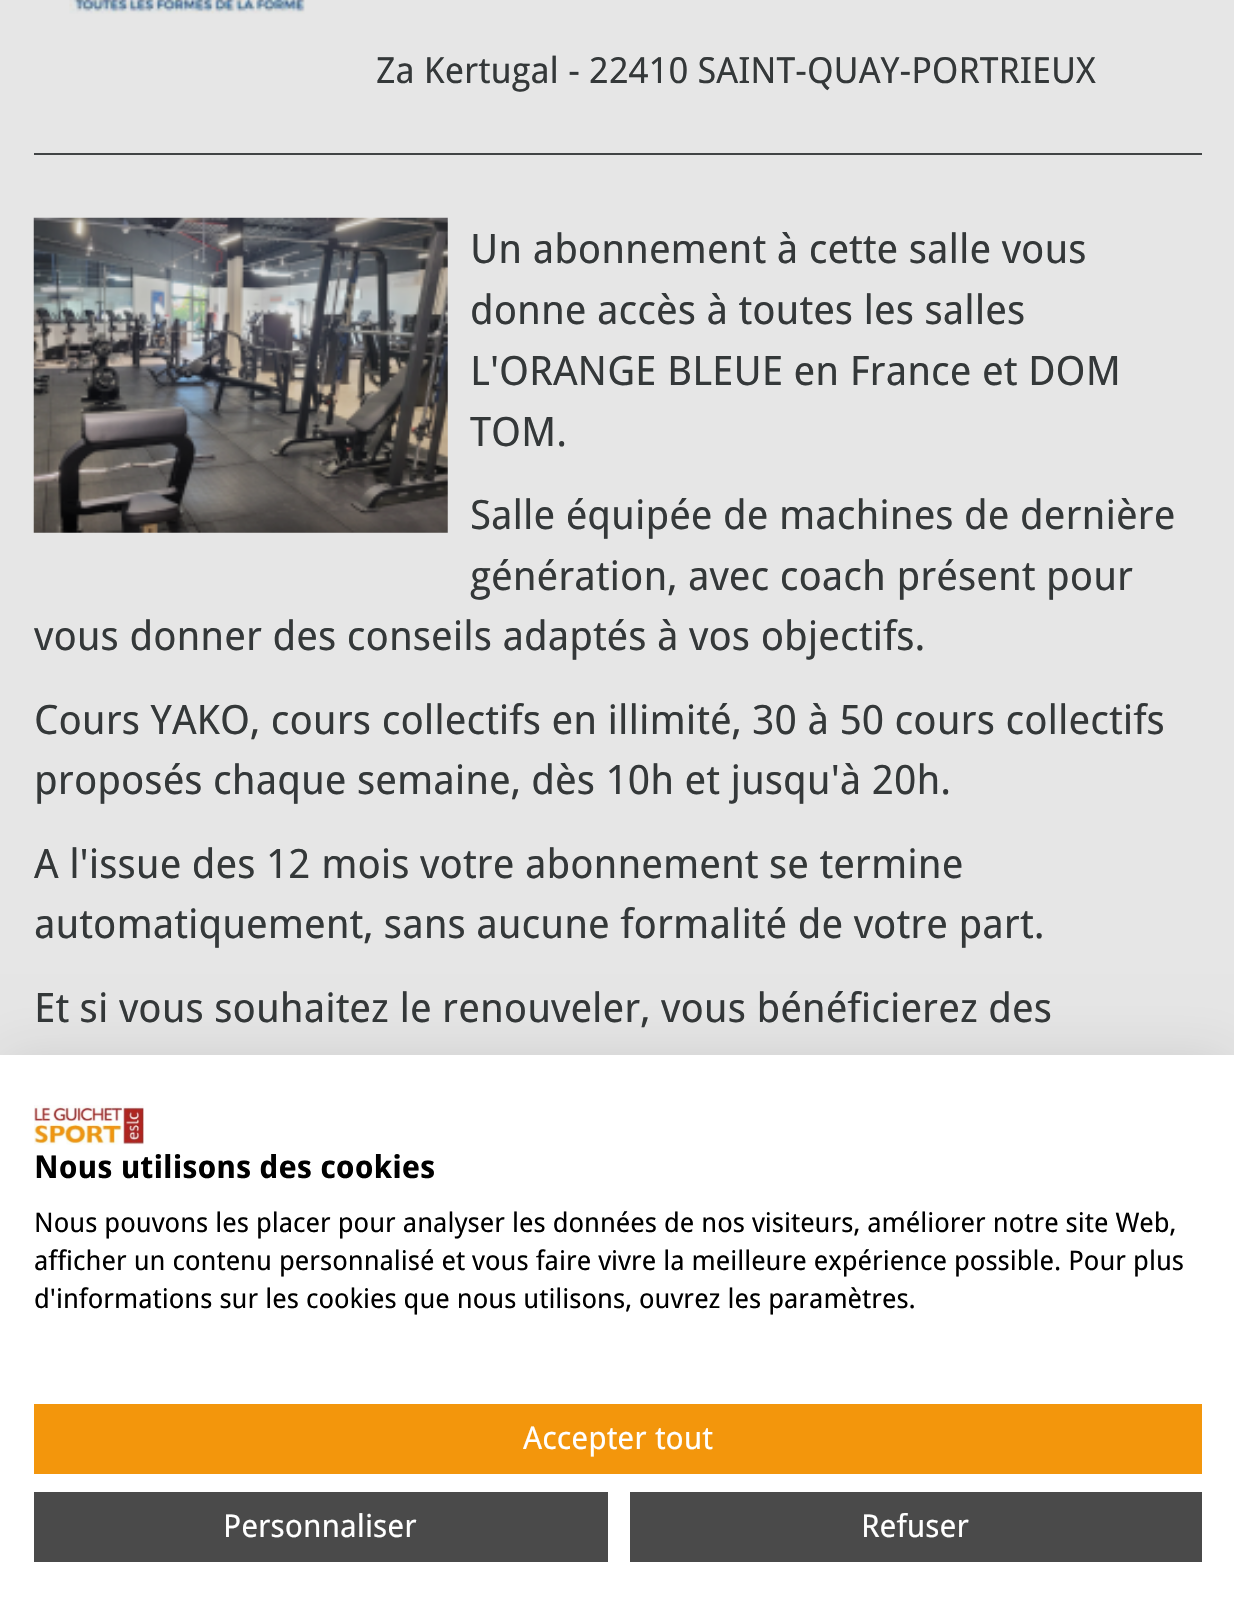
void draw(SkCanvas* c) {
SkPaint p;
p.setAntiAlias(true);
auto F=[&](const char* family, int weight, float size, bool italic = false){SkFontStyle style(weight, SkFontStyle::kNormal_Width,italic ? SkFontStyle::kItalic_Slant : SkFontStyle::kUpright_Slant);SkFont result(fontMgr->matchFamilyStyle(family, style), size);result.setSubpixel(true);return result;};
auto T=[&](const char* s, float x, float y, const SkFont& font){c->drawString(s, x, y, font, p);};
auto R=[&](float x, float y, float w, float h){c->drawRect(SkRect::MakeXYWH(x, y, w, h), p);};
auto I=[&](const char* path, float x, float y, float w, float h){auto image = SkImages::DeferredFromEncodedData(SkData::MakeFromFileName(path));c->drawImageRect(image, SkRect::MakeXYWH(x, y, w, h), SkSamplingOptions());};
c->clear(0xffe6e6e6);
I("1.png",69,0,236,14);
auto f1 = F("Droid Sans",400,36);
p.setColor(0xff343839);
T("Za Kertugal - 22410 SAINT-QUAY-PORTRIEUX",376,83,f1);
p.setColor(0xff414445);
R(34,153,1168,2);
I("2.png",33,217,415,316);
auto f2 = F("Droid Sans",400,40.5);
p.setColor(0xff343839);
T("Un abonnement à cette salle vous",470,263,f2);
T("donne accès à toutes les salles",470,324,f2);
T("L'ORANGE BLEUE en France et DOM",470,385,f2);
T("TOM.",470,446,f2);
T("Salle équipée de machines de dernière",470,529,f2);
T("génération, avec coach présent pour",470,590,f2);
T("vous donner des conseils adaptés à vos objectifs.",34,650,f2);
T("Cours YAKO, cours collectifs en illimité, 30 à 50 cours collectifs",34,734,f2);
T("proposés chaque semaine, dès 10h et jusqu'à 20h.",34,794,f2);
T("A l'issue des 12 mois votre abonnement se termine",34,878,f2);
T("automatiquement, sans aucune formalité de votre part.",34,938,f2);
T("Et si vous souhaitez le renouveler, vous bénéficierez des",34,1022,f2);
p.setColor(0x1a000000);
p.setMaskFilter(SkMaskFilter::MakeBlur(kNormal_SkBlurStyle, 27));
c->drawRect(SkRect::MakeXYWH(0,1055,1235,567),p);
p.setMaskFilter(nullptr);
p.setColor(0xffffffff);
R(0,1055,1234,567);
I("3.png",34,1105,110,40);
auto f3 = F("Droid Sans",700,31.5);
p.setColor(0xff000000);
T("Nous utilisons des cookies",34,1178,f3);
auto f4 = F("Droid Sans",400,27);
T("Nous pouvons les placer pour analyser les données de nos visiteurs, améliorer notre site Web,",34,1232,f4);
T("afficher un contenu personnalisé et vous faire vivre la meilleure expérience possible. Pour plus",34,1270,f4);
T("d'informations sur les cookies que nous utilisons, ouvrez les paramètres.",34,1308,f4);
p.setColor(0xfff3960c);
R(34,1404,1168,70);
auto f5 = F("Droid Sans",400,31.5);
p.setColor(0xffffffff);
T("Accepter tout",523,1449,f5);
p.setColor(0xff4a4a4a);
R(34,1492,574,70);
p.setColor(0xffffffff);
T("Personnaliser",223,1537,f5);
p.setColor(0xff4a4a4a);
R(630,1492,572,70);
p.setColor(0xffffffff);
T("Refuser",861,1537,f5);
}
